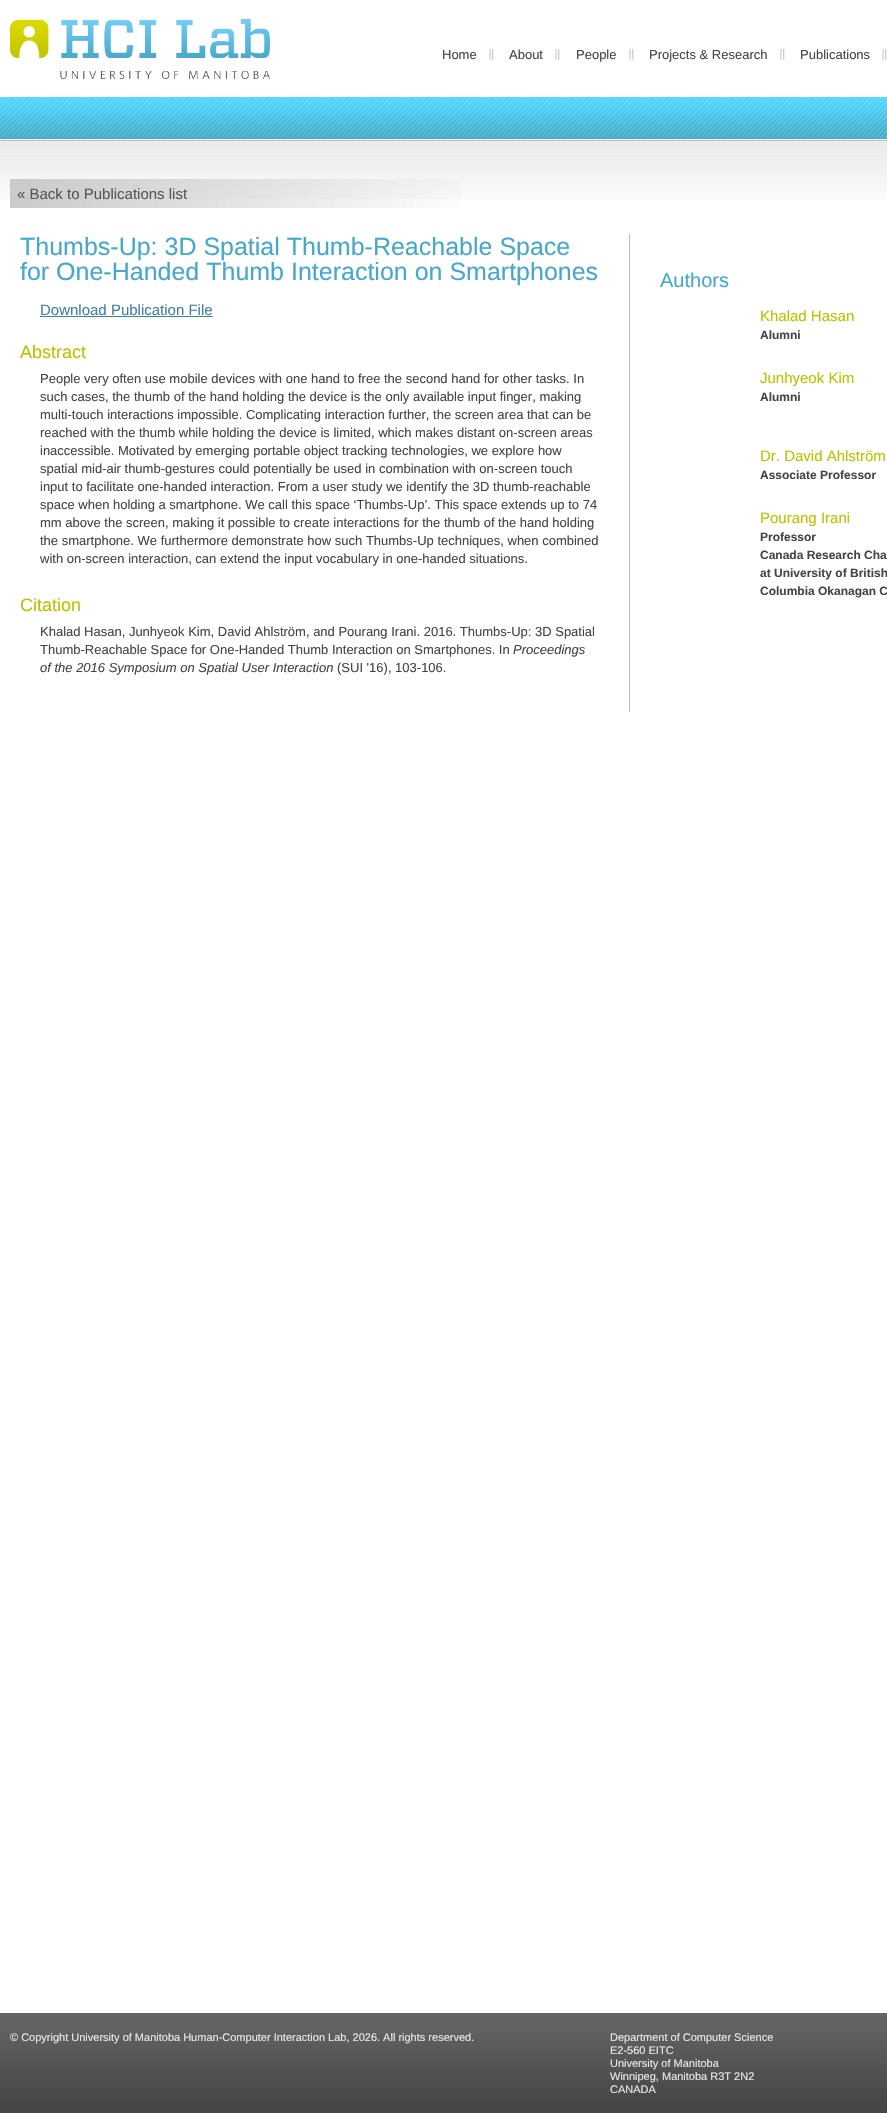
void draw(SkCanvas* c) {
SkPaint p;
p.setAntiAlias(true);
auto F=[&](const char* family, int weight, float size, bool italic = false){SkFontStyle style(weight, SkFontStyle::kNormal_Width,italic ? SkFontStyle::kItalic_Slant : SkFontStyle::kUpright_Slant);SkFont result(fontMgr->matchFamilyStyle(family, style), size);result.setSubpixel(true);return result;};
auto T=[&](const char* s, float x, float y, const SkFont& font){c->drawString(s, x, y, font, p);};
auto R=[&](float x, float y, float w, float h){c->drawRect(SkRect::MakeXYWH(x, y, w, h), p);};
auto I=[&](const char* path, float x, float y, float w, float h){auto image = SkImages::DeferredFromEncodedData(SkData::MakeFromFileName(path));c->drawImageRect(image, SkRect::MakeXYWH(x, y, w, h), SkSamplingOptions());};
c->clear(0xffffffff);
I("1.png",0,97,887,102);
I("2.png",10,19,260,60);
auto f1 = F("Liberation Sans",400,13);
p.setColor(0xff454545);
T("Home",442,59,f1);
I("3.png",489,49,5,11);
T("About",509,59,f1);
I("3.png",555,49,5,11);
T("People",576,59,f1);
I("3.png",629,49,5,11);
T("Projects & Research",649,59,f1);
I("3.png",780,49,5,11);
T("Publications",800,59,f1);
I("3.png",882,49,5,11);
{
const SkColor colors[] = {0xffcacaca,0x00cacaca};
const float stops[] = {0,1};
const SkPoint ends[] = {{10,194}, {480,193}};
p.setShader(SkGradientShader::MakeLinear(ends, colors, stops, 2, SkTileMode::kClamp));
p.setAlpha(255);
}
R(10,179,451,29);
auto f2 = F("Liberation Sans",400,15);
p.setShader(nullptr);
p.setColor(0xff575757);
T("« Back to Publications list",17,199,f2);
p.setColor(0xffbbbbbb);
R(629,234,1,478);
auto f3 = F("Liberation Sans",400,25);
p.setColor(0xff47a8c7);
T("Thumbs-Up: 3D Spatial Thumb-Reachable Space",20,255,f3);
T("for One-Handed Thumb Interaction on Smartphones",20,280,f3);
p.setColor(0xff4080aa);
T("Download Publication File",40,315,f2);
R(40,316,173,1);
auto f4 = F("Liberation Sans",400,18);
p.setColor(0xffbcc300);
T("Abstract",20,358,f4);
p.setColor(0xff454545);
T("People very often use mobile devices with one hand to free the second hand for other tasks. In",40,383,f1);
T("such cases, the thumb of the hand holding the device is the only available input finger, making",40,401,f1);
T("multi-touch interactions impossible. Complicating interaction further, the screen area that can be",40,419,f1);
T("reached with the thumb while holding the device is limited, which makes distant on-screen areas",40,437,f1);
T("inaccessible. Motivated by emerging portable object tracking technologies, we explore how",40,455,f1);
T("spatial mid-air thumb-gestures could potentially be used in combination with on-screen touch",40,473,f1);
T("input to facilitate one-handed interaction. From a user study we identify the 3D thumb-reachable",40,491,f1);
T("space when holding a smartphone. We call this space ‘Thumbs-Up’. This space extends up to 74",40,509,f1);
T("mm above the screen, making it possible to create interactions for the thumb of the hand holding",40,527,f1);
T("the smartphone. We furthermore demonstrate how such Thumbs-Up techniques, when combined",40,545,f1);
T("with on-screen interaction, can extend the input vocabulary in one-handed situations.",40,563,f1);
p.setColor(0xffbcc300);
T("Citation",20,611,f4);
p.setColor(0xff454545);
T("Khalad Hasan, Junhyeok Kim, David Ahlström, and Pourang Irani. 2016. Thumbs-Up: 3D Spatial",40,636,f1);
T("Thumb-Reachable Space for One-Handed Thumb Interaction on Smartphones. In",40,654,f1);
auto f5 = F("Liberation Sans",400,13,true);
T("Proceedings",513,654,f5);
T("of the 2016 Symposium on Spatial User Interaction",40,672,f5);
T("(SUI '16), 103-106.",337,672,f1);
auto f6 = F("Liberation Sans",400,20);
p.setColor(0xff47a8c7);
T("Authors",660,287,f6);
p.setColor(0xffbcc300);
T("Khalad Hasan",760,321,f2);
auto f7 = F("Liberation Sans",700,12);
p.setColor(0xff454545);
T("Alumni",760,339,f7);
p.setColor(0xffbcc300);
T("Junhyeok Kim",760,383,f2);
p.setColor(0xff454545);
T("Alumni",760,401,f7);
p.setColor(0xffbcc300);
T("Dr. David Ahlström",760,461,f2);
p.setColor(0xff454545);
T("Associate Professor",760,479,f7);
p.setColor(0xffbcc300);
T("Pourang Irani",760,523,f2);
p.setColor(0xff454545);
T("Professor",760,541,f7);
T("Canada Research Cha",760,559,f7);
T("at University of British",760,577,f7);
T("Columbia Okanagan C",760,595,f7);
I("4.png",0,2013,887,100);
auto f8 = F("Liberation Sans",400,11);
p.setColor(0xffe6e7e8);
T("© Copyright University of Manitoba Human-Computer Interaction Lab, 2026. All rights reserved.",10,2041,f8);
T("Department of Computer Science",610,2041,f8);
T("E2-560 EITC",610,2054,f8);
T("University of Manitoba",610,2067,f8);
T("Winnipeg, Manitoba R3T 2N2",610,2080,f8);
T("CANADA",610,2093,f8);
}
